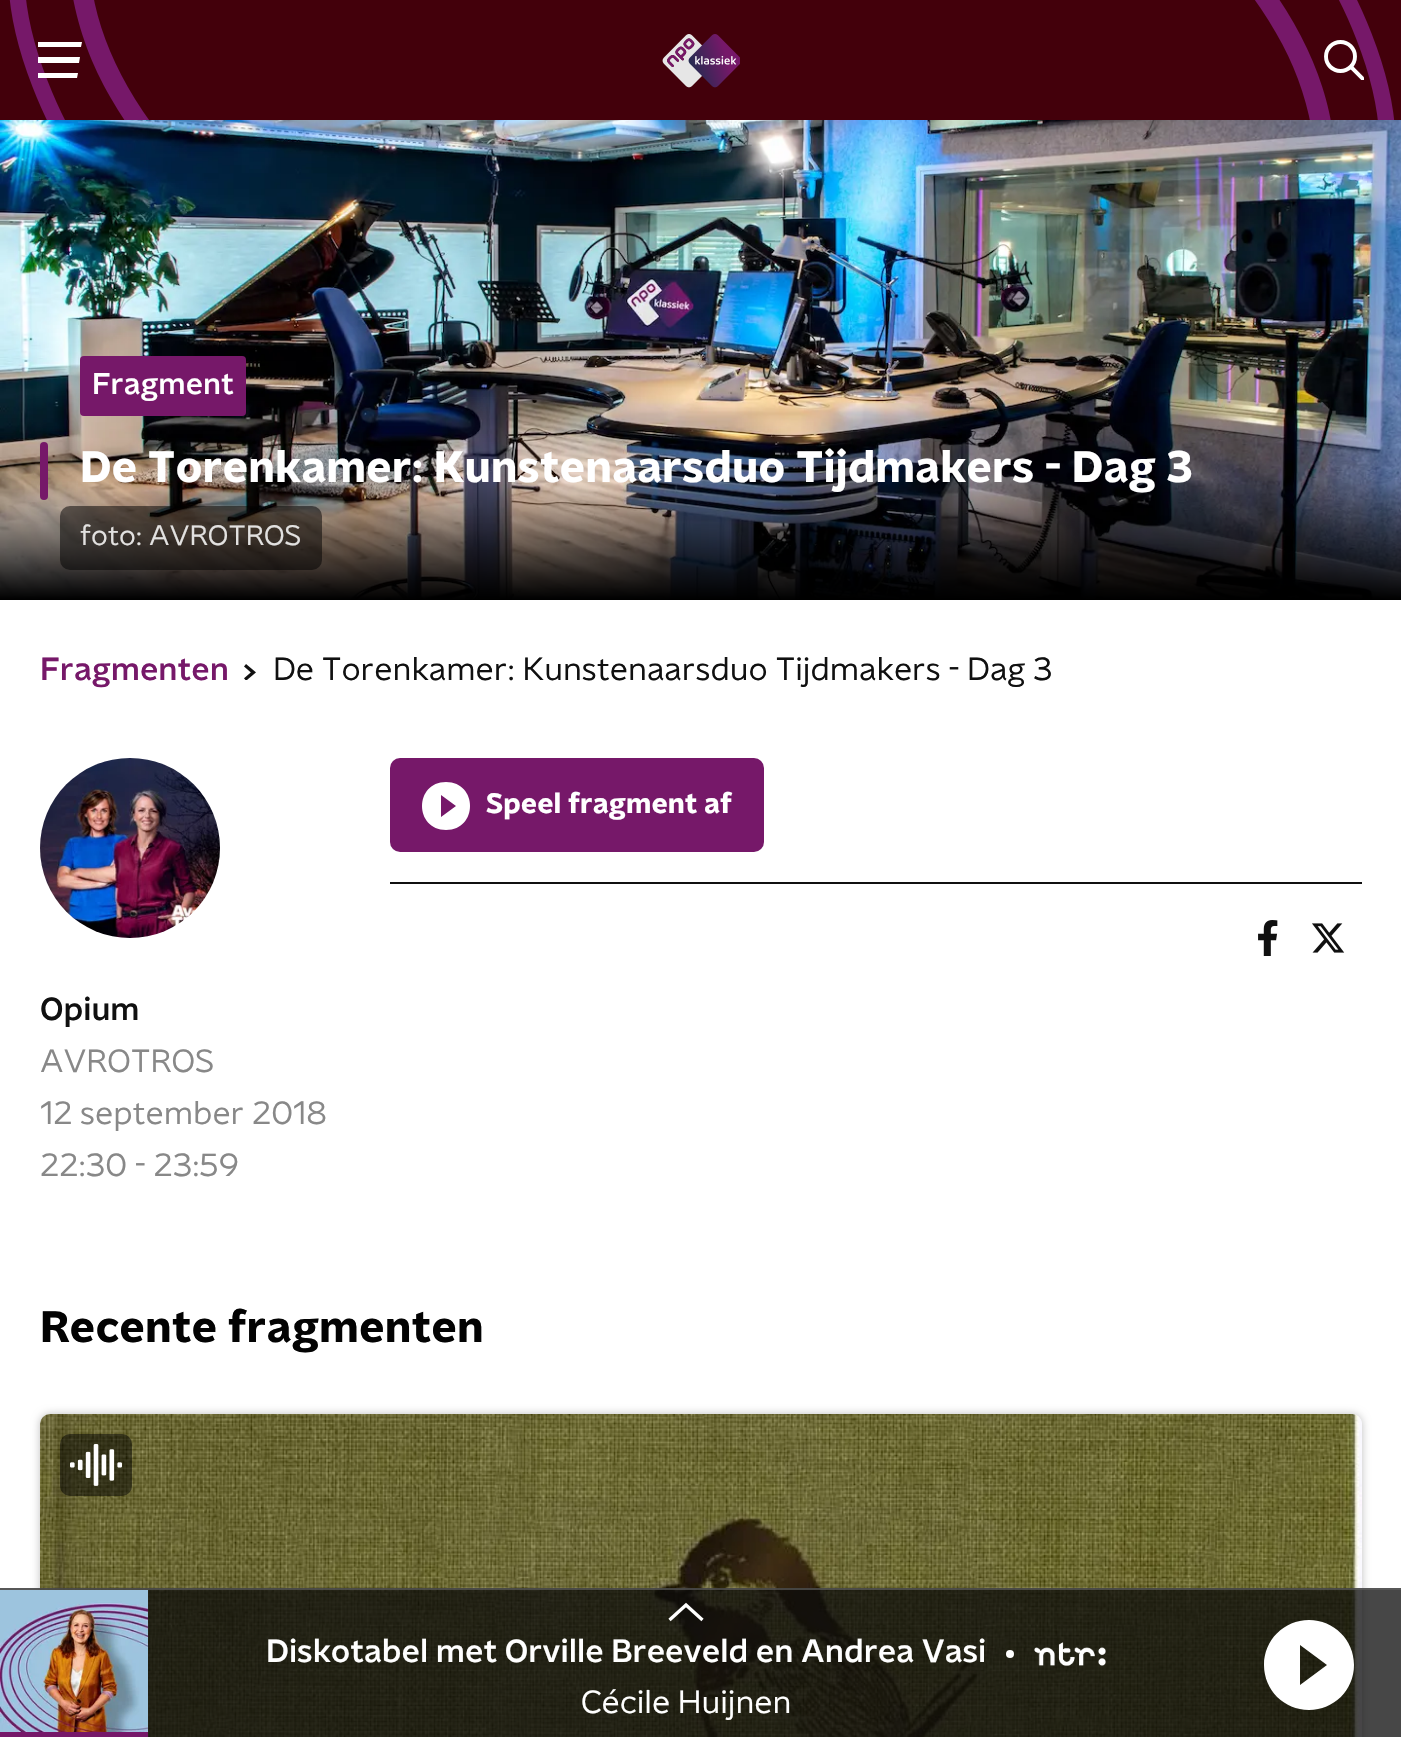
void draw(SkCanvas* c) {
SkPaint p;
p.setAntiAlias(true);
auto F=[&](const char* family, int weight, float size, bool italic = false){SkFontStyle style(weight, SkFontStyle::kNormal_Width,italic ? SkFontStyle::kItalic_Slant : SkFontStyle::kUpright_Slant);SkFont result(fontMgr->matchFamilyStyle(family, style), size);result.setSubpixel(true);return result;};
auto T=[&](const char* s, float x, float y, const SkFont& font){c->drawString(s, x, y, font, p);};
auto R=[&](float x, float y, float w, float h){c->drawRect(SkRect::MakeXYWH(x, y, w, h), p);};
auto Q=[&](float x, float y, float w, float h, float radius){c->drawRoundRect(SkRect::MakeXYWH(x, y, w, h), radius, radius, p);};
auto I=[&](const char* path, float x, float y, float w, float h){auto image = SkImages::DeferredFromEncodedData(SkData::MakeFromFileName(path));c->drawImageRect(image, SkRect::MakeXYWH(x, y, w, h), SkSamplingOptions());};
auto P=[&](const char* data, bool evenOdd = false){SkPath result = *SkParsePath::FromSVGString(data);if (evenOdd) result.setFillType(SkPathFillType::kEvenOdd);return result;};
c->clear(0xffffffff);
p.setColor(0xff43000b);
R(0,0,1401,120);
I("1.png",9,0,1386,120);
p.setColor(0xffffffff);
c->drawPath(P("M38 42h44l-1 5h-43zm0 15h42l-1 6h-41zm0 16h40l-1 5h-39z"),p);
I("2.png",662,34,78,54);
p.setStroke(true);
p.setStrokeWidth(3.9);
c->drawCircle(1340.5,56.5,14.5,p);
c->save();
c->clipRect(SkRect::MakeXYWH(1324,40,40,40));
p.setStrokeCap(SkPaint::kSquare_Cap);
c->drawPath(P("M1351 67l12 12"),p);
c->restore();
I("3.png",0,120,1401,480);
p.setStroke(false);
p.setColor(0xff761869);
Q(80,356,166,60,4);
auto f1 = F("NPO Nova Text",500,30);
p.setColor(0xffffffff);
T("Fragment",92,394,f1);
p.setColor(0xff761869);
Q(40,442,8,58,4);
auto f2 = F("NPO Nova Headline",700,44);
p.setColor(0xffffffff);
T("De Torenkamer: Kunstenaarsduo Tijdmakers - Dag 3",80,482,f2);
p.setColor(0x80000000);
Q(60,506,262,64,10);
auto f3 = F("NPO Nova Text",400,28);
p.setColor(0xffe2e1e0);
T("foto:",80,545,f3);
T("AVROTROS",149,545,f3);
auto f4 = F("NPO Nova Text",500,32);
p.setColor(0xff761869);
T("Fragmenten",40,680,f4);
I("4.png",244,664,12,16);
auto f5 = F("NPO Nova Text",400,32);
p.setColor(0xff101010);
T("De Torenkamer: Kunstenaarsduo Tijdmakers - Dag 3",273,680,f5);
p.setColor(0xff761869);
Q(390,758,374,94,10);
p.setColor(0xffffffff);
c->drawPath(P("M446 782c-32 0-32 48 0 48c32 0 32-48 0-48zm-5 35v-22l15 11z"),p);
auto f6 = F("NPO Nova Headline",700,28);
T("Speel fragment af",486,813,f6);
p.setColor(0xff101010);
R(390,882,972,2);
I("5.png",1258,920,20,36);
I("6.png",1312,923,33,30);
I("7.png",40,758,180,180);
T("Opium",40,1020,f4);
p.setColor(0xff888888);
T("AVROTROS",40,1072,f5);
T("12 september 2018",40,1124,f5);
T("22:30 - 23:59",40,1176,f5);
p.setColor(0xff030303);
T("Recente fragmenten",40,1342,f2);
p.setColor(0x40000000);
p.setMaskFilter(SkMaskFilter::MakeBlur(kNormal_SkBlurStyle, 4));
c->drawRoundRect(SkRect::MakeXYWH(40,1414,1322,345),10,10,p);
p.setMaskFilter(nullptr);
p.setColor(0xffffffff);
Q(40,1414,1322,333,10);
I("8.png",40,1414,1322,323);
p.setColor(0x80000000);
Q(60,1434,72,62,10);
I("9.png",70,1444,52,42);
p.setColor(0xbf090909);
R(0,1588,1401,149);
p.setColor(0xa65f5f5f);
R(0,1588,1401,2);
I("10.png",0,1590,148,142);
p.setColor(0xff761869);
R(0,1732,148,5);
p.setStroke(true);
p.setStrokeWidth(3.3);
p.setStrokeCap(SkPaint::kButt_Cap);
p.setColor(0xffffffff);
c->drawPath(P("M702.5 1620l-16.5-15l-16.5 15"),p);
p.setStroke(false);
T("Diskotabel met Orville Breeveld en Andrea Vasi",266,1662,f4);
c->drawCircle(1010,1654,4,p);
I("11.png",1034,1642,72,24);
T("Cécile Huijnen",581,1713,f5);
c->drawPath(P("M1309 1620c-25 0-45 20-45 45c0 25 20 45 45 45c25 0 45-20 45-45c0-25-20-45-45-45zm-9 65v-40l27 20z"),p);
}
